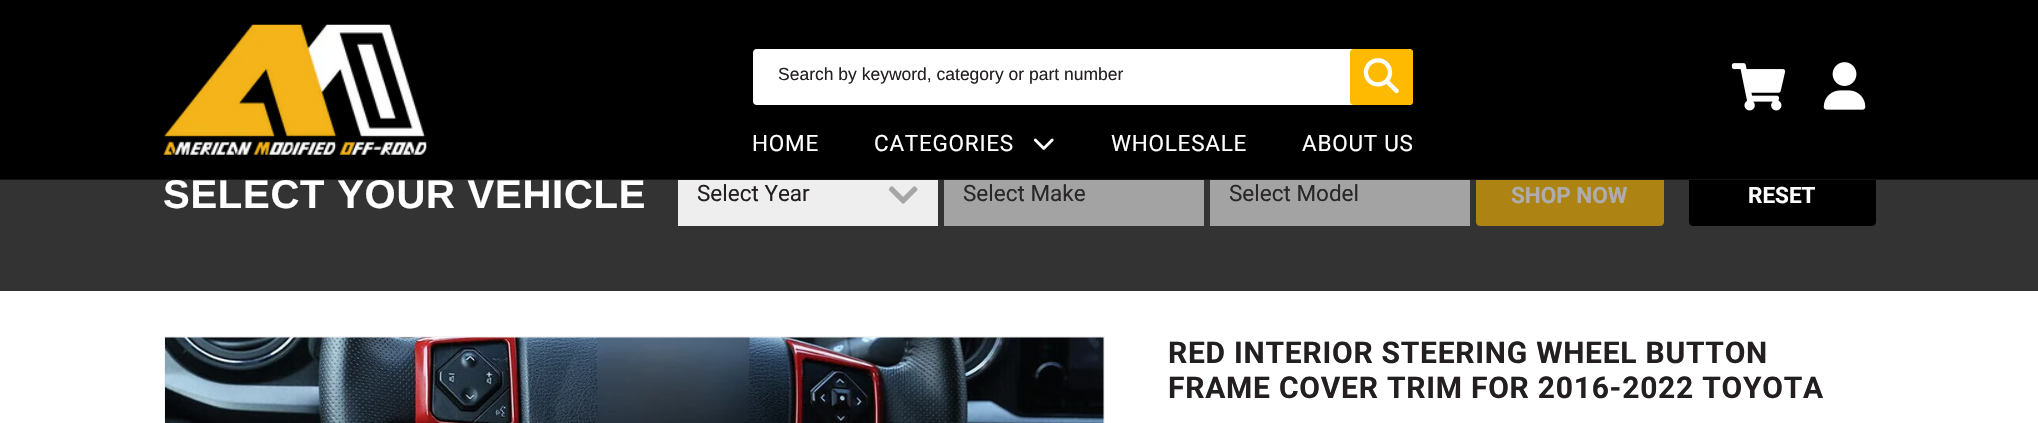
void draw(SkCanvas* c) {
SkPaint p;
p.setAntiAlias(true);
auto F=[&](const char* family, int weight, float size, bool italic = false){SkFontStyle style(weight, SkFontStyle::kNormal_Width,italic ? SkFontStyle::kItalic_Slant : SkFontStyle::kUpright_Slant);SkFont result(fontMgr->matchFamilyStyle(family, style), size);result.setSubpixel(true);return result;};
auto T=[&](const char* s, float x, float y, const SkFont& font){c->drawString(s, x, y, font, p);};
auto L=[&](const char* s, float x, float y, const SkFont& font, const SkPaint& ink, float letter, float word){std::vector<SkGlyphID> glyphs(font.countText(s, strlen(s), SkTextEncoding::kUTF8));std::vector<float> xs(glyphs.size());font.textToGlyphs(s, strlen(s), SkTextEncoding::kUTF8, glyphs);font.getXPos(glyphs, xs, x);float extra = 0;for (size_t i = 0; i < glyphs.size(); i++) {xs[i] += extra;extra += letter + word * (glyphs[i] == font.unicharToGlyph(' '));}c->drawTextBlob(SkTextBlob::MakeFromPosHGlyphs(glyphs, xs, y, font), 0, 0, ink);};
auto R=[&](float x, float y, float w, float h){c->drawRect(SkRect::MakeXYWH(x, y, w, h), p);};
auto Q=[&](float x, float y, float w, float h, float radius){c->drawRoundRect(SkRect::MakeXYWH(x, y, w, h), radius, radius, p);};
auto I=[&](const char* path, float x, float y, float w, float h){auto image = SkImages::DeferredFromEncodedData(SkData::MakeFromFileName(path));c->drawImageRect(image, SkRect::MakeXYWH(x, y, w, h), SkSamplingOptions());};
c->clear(0xffffffff);
p.setColor(0xff333333);
R(0,180,2038,111);
p.setColor(0xffad8414);
c->drawRoundRect(SkRect::MakeXYWH(1476.5,164.5,187,61),3.5,3.5,p);
p.setStroke(true);
p.setStrokeWidth(1);
c->drawRoundRect(SkRect::MakeXYWH(1476.5,164.5,187,61),3.5,3.5,p);
p.setStroke(false);
p.setColor(0xff000000);
c->drawRoundRect(SkRect::MakeXYWH(1689.5,164.5,186,61),3.5,3.5,p);
p.setStroke(true);
c->drawRoundRect(SkRect::MakeXYWH(1689.5,164.5,186,61),3.5,3.5,p);
p.setStroke(false);
R(0,0,2038,179);
p.setColor(0xff141414);
R(0,179,2038,1);
I("1.png",163,24,264,131);
p.setColor(0xffffffff);
Q(753,49,660,56,4);
auto f1 = F("Arimo",400,17.5);
p.setColor(0xff231f20);
T("Search by keyword, category or part number",778,80,f1);
p.setColor(0xfffeba00);
Q(1350,49,63,56,4);
I("2.png",1363,58,36,36);
auto f2 = F("Roboto",400,22.5);
p.setColor(0xffffffff);
L("HOME",752,151,f2,p,.75,0);
L("CATEGORIES",874,151,f2,p,.75,0);
I("3.png",1033,138,21,12);
L("WHOLESALE",1111,151,f2,p,.75,0);
L("ABOUT US",1302,151,f2,p,.75,0);
I("4.png",1731,63,55,48);
I("5.png",1823,62,43,48);
auto f3 = F("Arimo",700,40);
L("SELECT YOUR VEHICLE",163,208,f3,p,.75,0);
p.setColor(0xffeeeeee);
R(678,180,260,46);
I("6.png",889,186,29,18);
p.setColor(0xff231f20);
T("Select Year",697,201,f2);
p.setColor(0xffa3a3a3);
R(944,180,260,46);
p.setColor(0xff292728);
T("Select Make",963,201,f2);
p.setColor(0xffa3a3a3);
R(1210,180,260,46);
p.setColor(0xff292728);
T("Select Model",1229,201,f2);
auto f4 = F("Roboto",700,22.5);
p.setColor(0xffadadad);
T("SHOP NOW",1511,203,f4);
p.setColor(0xffffffff);
T("RESET",1748,203,f4);
p.setStroke(true);
p.setColor(0xfff3f3f3);
c->drawRect(SkRect::MakeXYWH(164.5,336.5,940,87),p);
I("7.png",165,337,939,86);
auto f5 = F("Roboto",700,30);
p.setStroke(false);
p.setColor(0xff231f20);
L("RED INTERIOR STEERING WHEEL BUTTON",1168,363,f5,p,.75,0);
L("FRAME COVER TRIM FOR 2016-2022 TOYOTA",1168,398,f5,p,.75,0);
}
